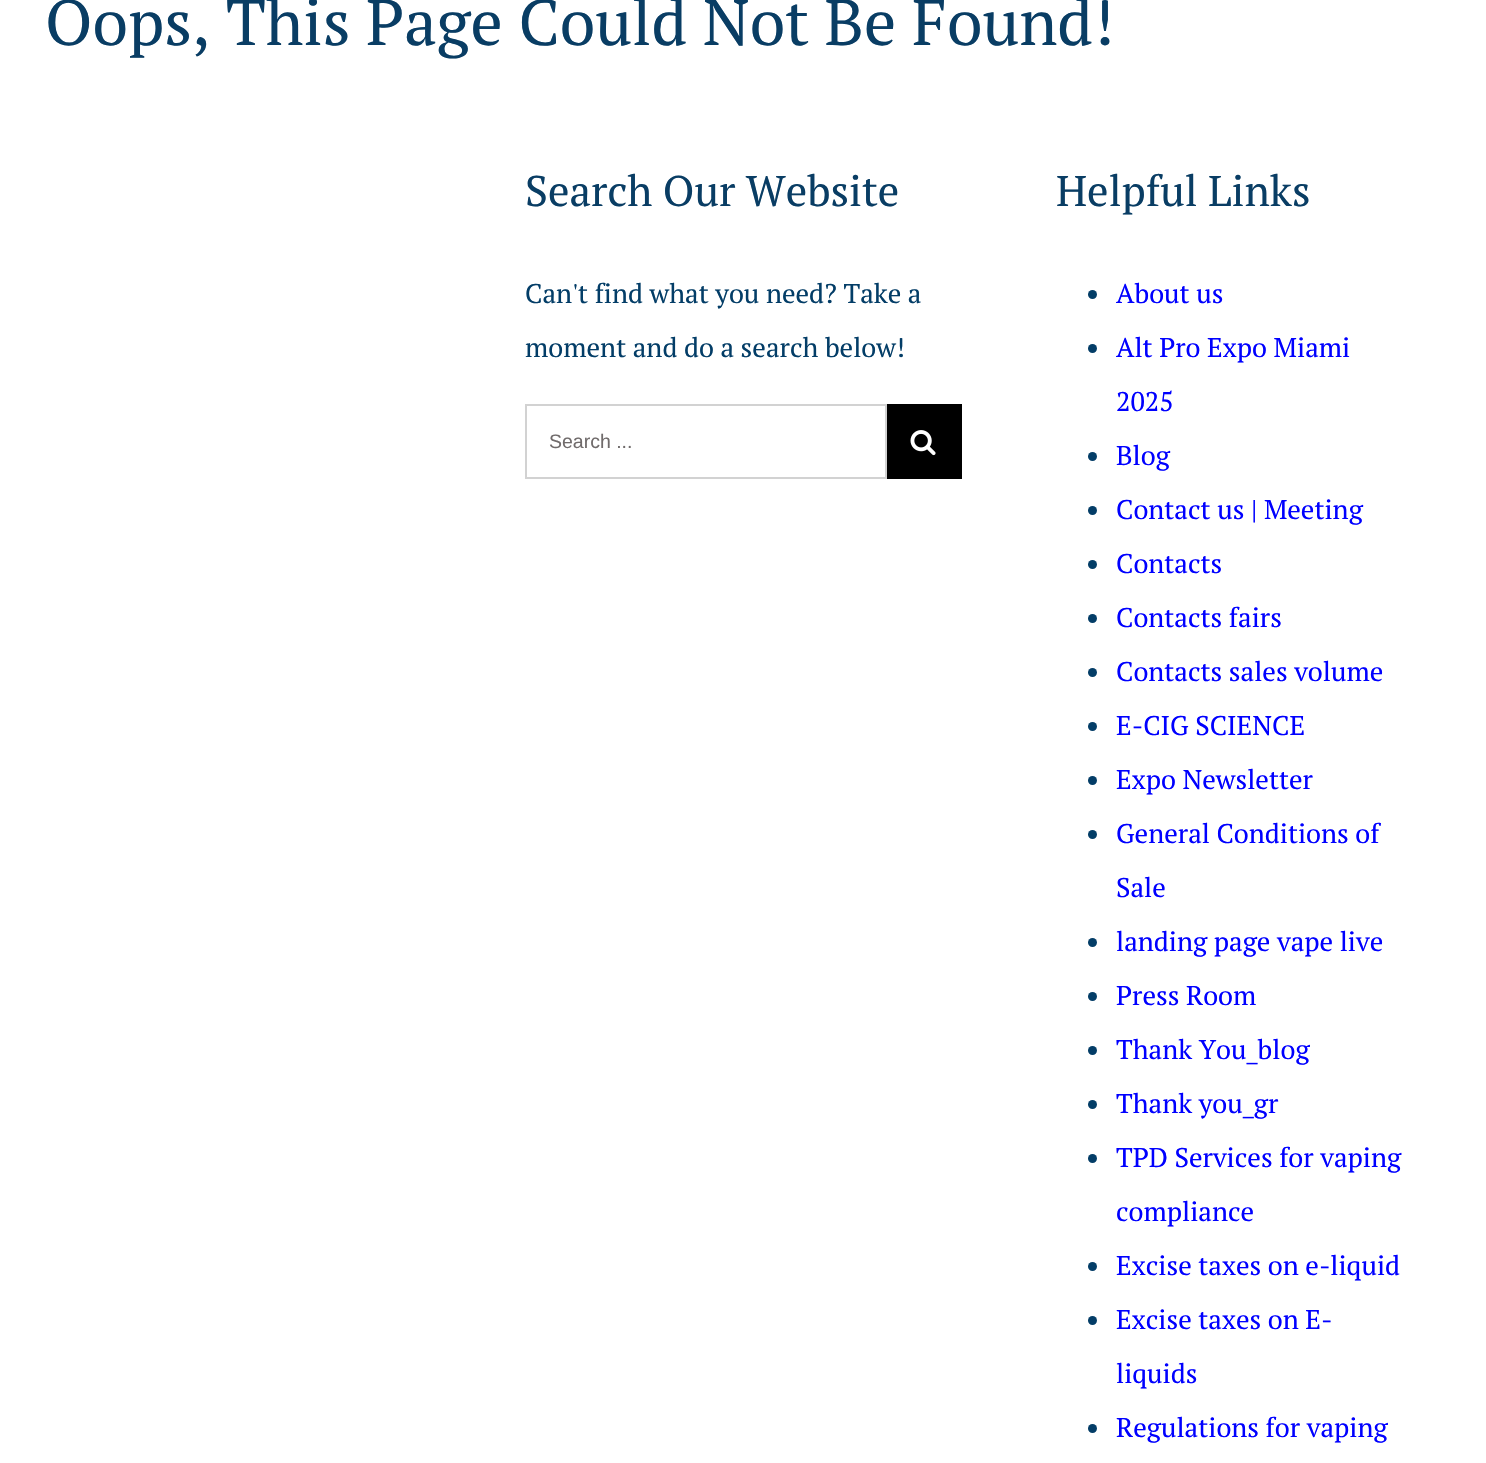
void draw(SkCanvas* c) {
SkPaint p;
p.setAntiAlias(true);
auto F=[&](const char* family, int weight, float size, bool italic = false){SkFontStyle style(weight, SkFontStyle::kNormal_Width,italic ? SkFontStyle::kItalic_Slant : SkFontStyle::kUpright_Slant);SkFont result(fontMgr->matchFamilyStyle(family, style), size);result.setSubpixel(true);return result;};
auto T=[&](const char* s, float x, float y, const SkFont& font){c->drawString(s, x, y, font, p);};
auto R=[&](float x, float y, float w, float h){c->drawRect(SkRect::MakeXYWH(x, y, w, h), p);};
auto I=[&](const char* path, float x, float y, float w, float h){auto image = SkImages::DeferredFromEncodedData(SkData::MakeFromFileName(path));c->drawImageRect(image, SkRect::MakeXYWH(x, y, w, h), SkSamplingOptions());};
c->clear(0xffffffff);
auto f1 = F("PT Serif",400,64.2);
p.setColor(0xff093d64);
T("Oops, This Page Could Not Be Found!",45,45,f1);
auto f2 = F("PT Serif",400,42.75);
T("Search Our Website",525,206,f2);
auto f3 = F("PT Serif",400,27);
p.setColor(0xff033d67);
T("Can't find what you need? Take a",525,303,f3);
T("moment and do a search below!",525,357,f3);
p.setStroke(true);
p.setStrokeWidth(2);
p.setColor(0xffd2d2d2);
c->drawRect(SkRect::MakeXYWH(526,405,360,73),p);
auto f4 = F("Liberation Sans",400,19.5);
p.setStroke(false);
p.setColor(0xff706b6b);
T("Search ...",549,448,f4);
p.setColor(0xff000000);
R(887,404,75,75);
I("1.png",910,430,26,26);
p.setColor(0xff093d64);
T("Helpful Links",1056,206,f2);
p.setColor(0xff033d67);
c->drawCircle(1092.5,294.5,4.5,p);
p.setColor(0xff0000ff);
T("About us",1116,303,f3);
p.setColor(0xff033d67);
c->drawCircle(1092.5,348.5,4.5,p);
p.setColor(0xff0000ff);
T("Alt Pro Expo Miami",1116,357,f3);
T("2025",1116,411,f3);
p.setColor(0xff033d67);
c->drawCircle(1092.5,456.5,4.5,p);
p.setColor(0xff0000ff);
T("Blog",1116,465,f3);
p.setColor(0xff033d67);
c->drawCircle(1092.5,510.5,4.5,p);
p.setColor(0xff0000ff);
T("Contact us | Meeting",1116,519,f3);
p.setColor(0xff033d67);
c->drawCircle(1092.5,564.5,4.5,p);
p.setColor(0xff0000ff);
T("Contacts",1116,573,f3);
p.setColor(0xff033d67);
c->drawCircle(1092.5,618.5,4.5,p);
p.setColor(0xff0000ff);
T("Contacts fairs",1116,627,f3);
p.setColor(0xff033d67);
c->drawCircle(1092.5,672.5,4.5,p);
p.setColor(0xff0000ff);
T("Contacts sales volume",1116,681,f3);
p.setColor(0xff033d67);
c->drawCircle(1092.5,726.5,4.5,p);
p.setColor(0xff0000ff);
T("E-CIG SCIENCE",1116,735,f3);
p.setColor(0xff033d67);
c->drawCircle(1092.5,780.5,4.5,p);
p.setColor(0xff0000ff);
T("Expo Newsletter",1116,789,f3);
p.setColor(0xff033d67);
c->drawCircle(1092.5,834.5,4.5,p);
p.setColor(0xff0000ff);
T("General Conditions of",1116,843,f3);
T("Sale",1116,897,f3);
p.setColor(0xff033d67);
c->drawCircle(1092.5,942.5,4.5,p);
p.setColor(0xff0000ff);
T("landing page vape live",1116,951,f3);
p.setColor(0xff033d67);
c->drawCircle(1092.5,996.5,4.5,p);
p.setColor(0xff0000ff);
T("Press Room",1116,1005,f3);
p.setColor(0xff033d67);
c->drawCircle(1092.5,1050.5,4.5,p);
p.setColor(0xff0000ff);
T("Thank You_blog",1116,1059,f3);
p.setColor(0xff033d67);
c->drawCircle(1092.5,1104.5,4.5,p);
p.setColor(0xff0000ff);
T("Thank you_gr",1116,1113,f3);
p.setColor(0xff033d67);
c->drawCircle(1092.5,1158.5,4.5,p);
p.setColor(0xff0000ff);
T("TPD Services for vaping",1116,1167,f3);
T("compliance",1116,1221,f3);
p.setColor(0xff033d67);
c->drawCircle(1092.5,1266.5,4.5,p);
p.setColor(0xff0000ff);
T("Excise taxes on e-liquid",1116,1275,f3);
p.setColor(0xff033d67);
c->drawCircle(1092.5,1320.5,4.5,p);
p.setColor(0xff0000ff);
T("Excise taxes on E-",1116,1329,f3);
T("liquids",1116,1383,f3);
p.setColor(0xff033d67);
c->drawCircle(1092.5,1428.5,4.5,p);
p.setColor(0xff0000ff);
T("Regulations for vaping",1116,1437,f3);
}
